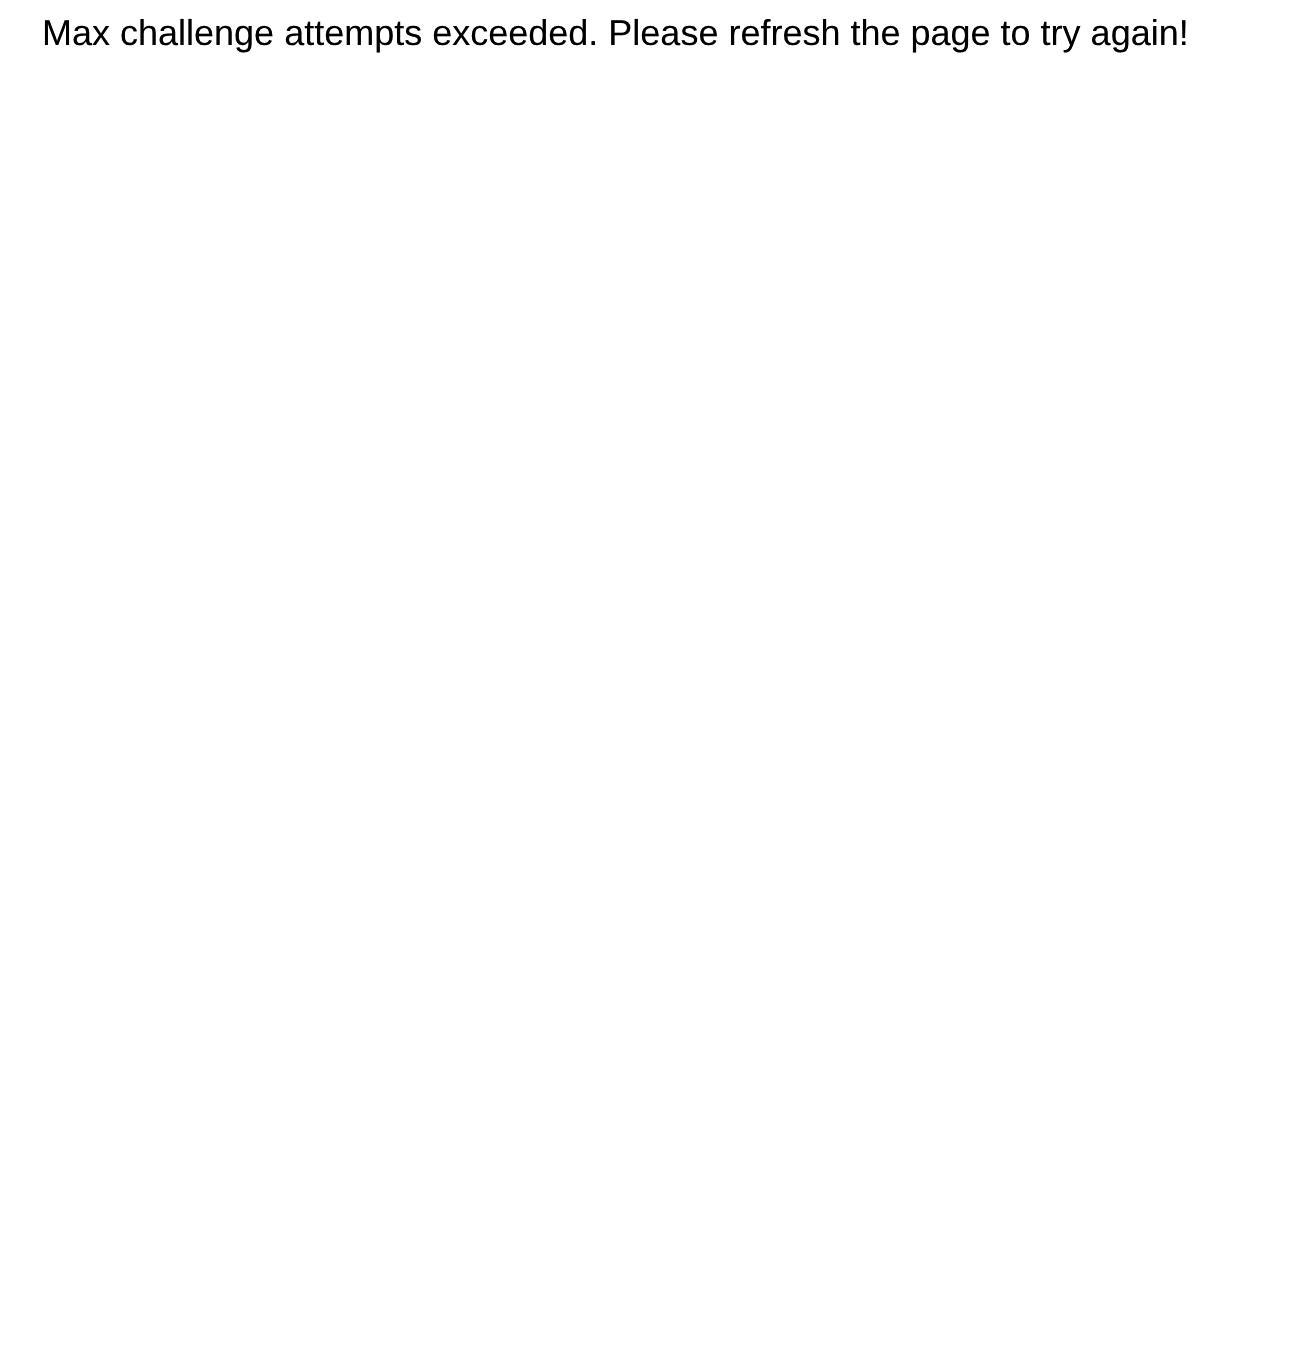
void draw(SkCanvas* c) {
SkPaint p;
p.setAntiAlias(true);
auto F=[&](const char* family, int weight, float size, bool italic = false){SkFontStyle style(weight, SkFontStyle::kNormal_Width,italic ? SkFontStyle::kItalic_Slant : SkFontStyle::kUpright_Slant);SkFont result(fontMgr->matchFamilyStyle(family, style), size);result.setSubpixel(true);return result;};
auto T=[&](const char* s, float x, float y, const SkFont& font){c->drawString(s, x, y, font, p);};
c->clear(0xffffffff);
auto f1 = F("Liberation Sans",400,36);
p.setColor(0xff000000);
T("Max challenge attempts exceeded. Please refresh the page to try again!",42,45,f1);
}
